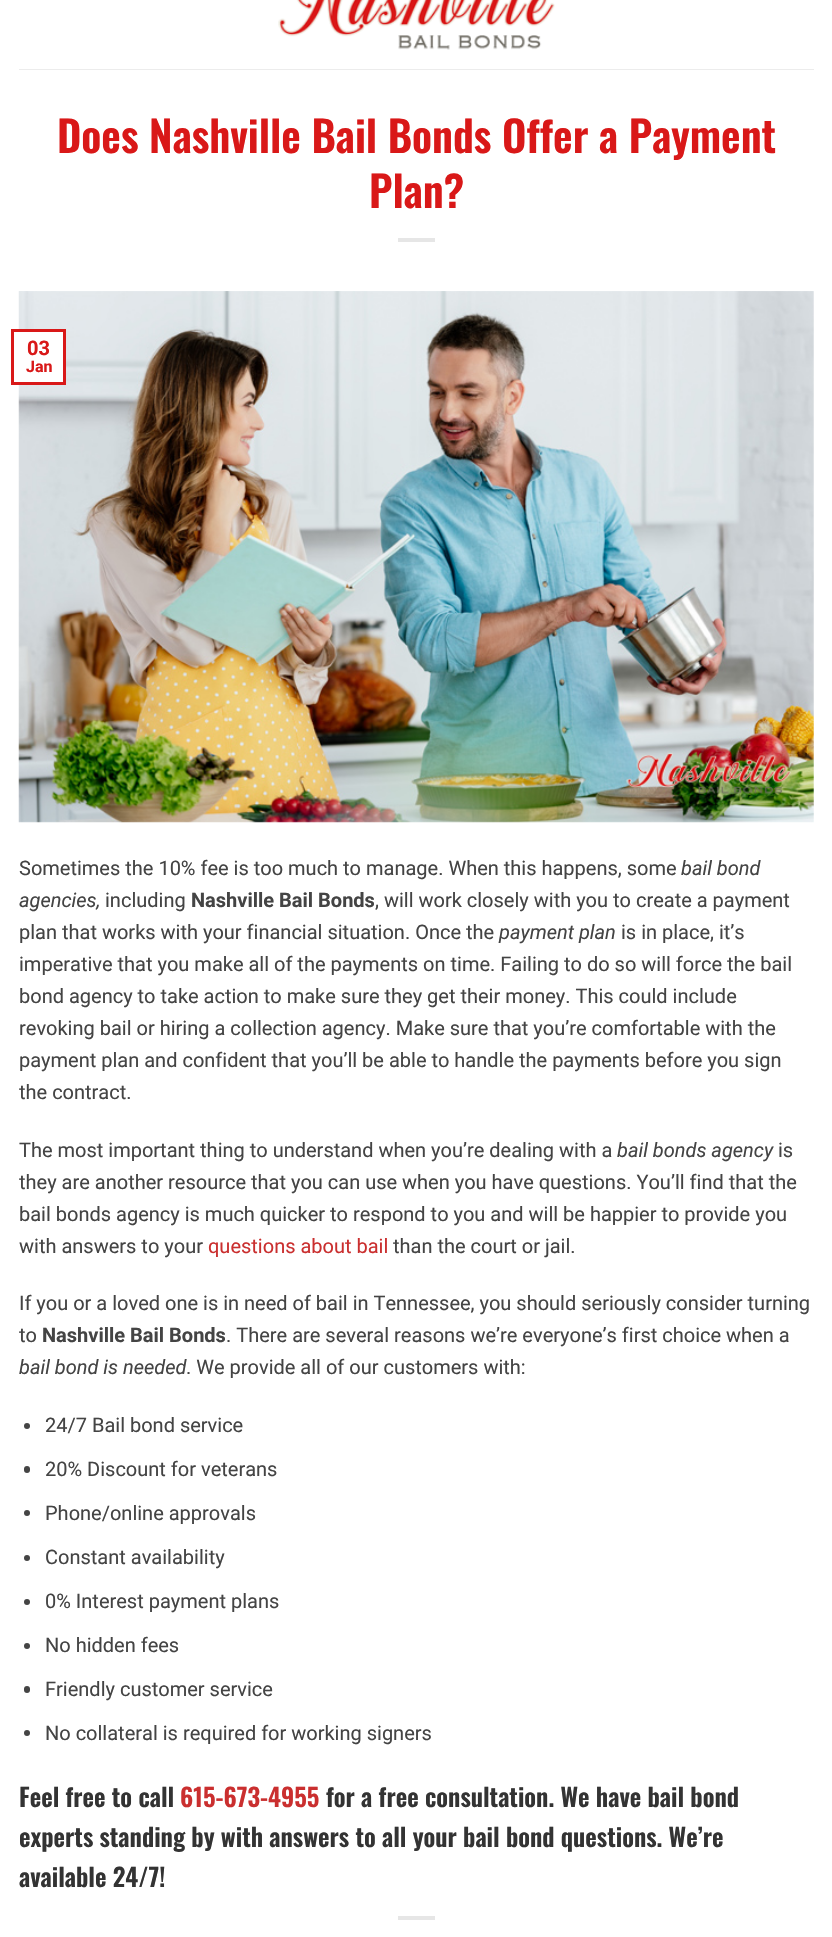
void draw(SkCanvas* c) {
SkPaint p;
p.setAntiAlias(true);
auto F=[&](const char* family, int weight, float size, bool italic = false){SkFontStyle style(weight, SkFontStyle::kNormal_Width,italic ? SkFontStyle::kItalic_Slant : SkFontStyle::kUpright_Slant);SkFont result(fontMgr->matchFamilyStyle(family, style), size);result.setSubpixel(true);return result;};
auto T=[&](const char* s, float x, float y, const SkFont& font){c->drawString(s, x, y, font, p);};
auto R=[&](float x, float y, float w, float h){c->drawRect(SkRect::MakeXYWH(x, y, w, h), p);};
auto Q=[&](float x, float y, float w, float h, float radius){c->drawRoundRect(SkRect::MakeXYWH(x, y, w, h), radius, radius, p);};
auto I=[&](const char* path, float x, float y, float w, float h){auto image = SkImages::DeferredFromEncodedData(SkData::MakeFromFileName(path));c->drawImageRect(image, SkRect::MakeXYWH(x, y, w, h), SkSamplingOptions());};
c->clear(0xffffffff);
I("1.png",278,0,277,50);
p.setColor(0xffececec);
R(19,69,795,1);
auto f1 = F("Oswald",600,42.5);
p.setColor(0xffd91818);
T("Does Nashville Bail Bonds Offer a Payment",57,153,f1);
T("Plan?",369,208,f1);
p.setColor(0xffe6e6e6);
R(398,238,37,4);
I("2.png",18,291,796,532);
p.setColor(0xffffffff);
R(18,332,45,50);
p.setStroke(true);
p.setStrokeWidth(3);
p.setColor(0xffd91818);
c->drawRect(SkRect::MakeXYWH(12.5,330.5,52,53),p);
auto f2 = F("Roboto",700,20);
p.setStroke(false);
T("03",27,355,f2);
auto f3 = F("Roboto",700,16);
T("Jan",26,372,f3);
auto f4 = F("Roboto",400,20);
p.setColor(0xff444444);
T("Sometimes the 10% fee is too much to manage. When this happens, some",19,875,f4);
auto f5 = F("Roboto",400,20,true);
T("bail bond",681,875,f5);
T("agencies,",19,907,f5);
T("including",105,907,f4);
T("Nashville Bail Bonds",191,907,f2);
T(", will work closely with you to create a payment",375,907,f4);
T("plan that works with your financial situation. Once the",19,939,f4);
T("payment plan",499,939,f5);
T("is in place, it’s",621,939,f4);
T("imperative that you make all of the payments on time. Failing to do so will force the bail",19,971,f4);
T("bond agency to take action to make sure they get their money. This could include",19,1003,f4);
T("revoking bail or hiring a collection agency. Make sure that you’re comfortable with the",19,1035,f4);
T("payment plan and confident that you’ll be able to handle the payments before you sign",19,1067,f4);
T("the contract.",19,1099,f4);
T("The most important thing to understand when you’re dealing with a",19,1157,f4);
T("bail bonds agency",617,1157,f5);
T("is",778,1157,f4);
T("they are another resource that you can use when you have questions. You’ll find that the",19,1189,f4);
T("bail bonds agency is much quicker to respond to you and will be happier to provide you",19,1221,f4);
T("with answers to your",19,1253,f4);
p.setColor(0xffca2f2f);
T("questions about bail",208,1253,f4);
p.setColor(0xff444444);
T("than the court or jail.",393,1253,f4);
T("If you or a loved one is in need of bail in Tennessee, you should seriously consider turning",19,1310,f4);
T("to",19,1342,f4);
T("Nashville Bail Bonds",42,1342,f2);
T(". There are several reasons we’re everyone’s first choice when a",226,1342,f4);
T("bail bond is needed",19,1374,f5);
T(". We provide all of our customers with:",186,1374,f4);
c->drawCircle(27,1426,3,p);
T("24/7 Bail bond service",45,1432,f4);
Q(24,1466,6,7,3);
T("20% Discount for veterans",45,1476,f4);
c->drawCircle(27,1513,3,p);
T("Phone/online approvals",45,1520,f4);
c->drawCircle(27,1558,3,p);
T("Constant availability",45,1564,f4);
c->drawCircle(27,1602,3,p);
T("0% Interest payment plans",45,1608,f4);
c->drawCircle(27,1646,3,p);
T("No hidden fees",45,1652,f4);
Q(24,1686,6,7,3);
T("Friendly customer service",45,1696,f4);
c->drawCircle(27,1733,3,p);
T("No collateral is required for working signers",45,1740,f4);
auto f6 = F("Oswald",600,25);
p.setColor(0xff333333);
T("Feel free to call",19,1807,f6);
p.setColor(0xffca2f2f);
T("615-673-4955",180,1807,f6);
p.setColor(0xff333333);
T("for a free consultation. We have bail bond",326,1807,f6);
T("experts standing by with answers to all your bail bond questions. We’re",19,1847,f6);
T("available 24/7!",19,1887,f6);
p.setColor(0xffe6e6e6);
R(398,1916,37,4);
}
